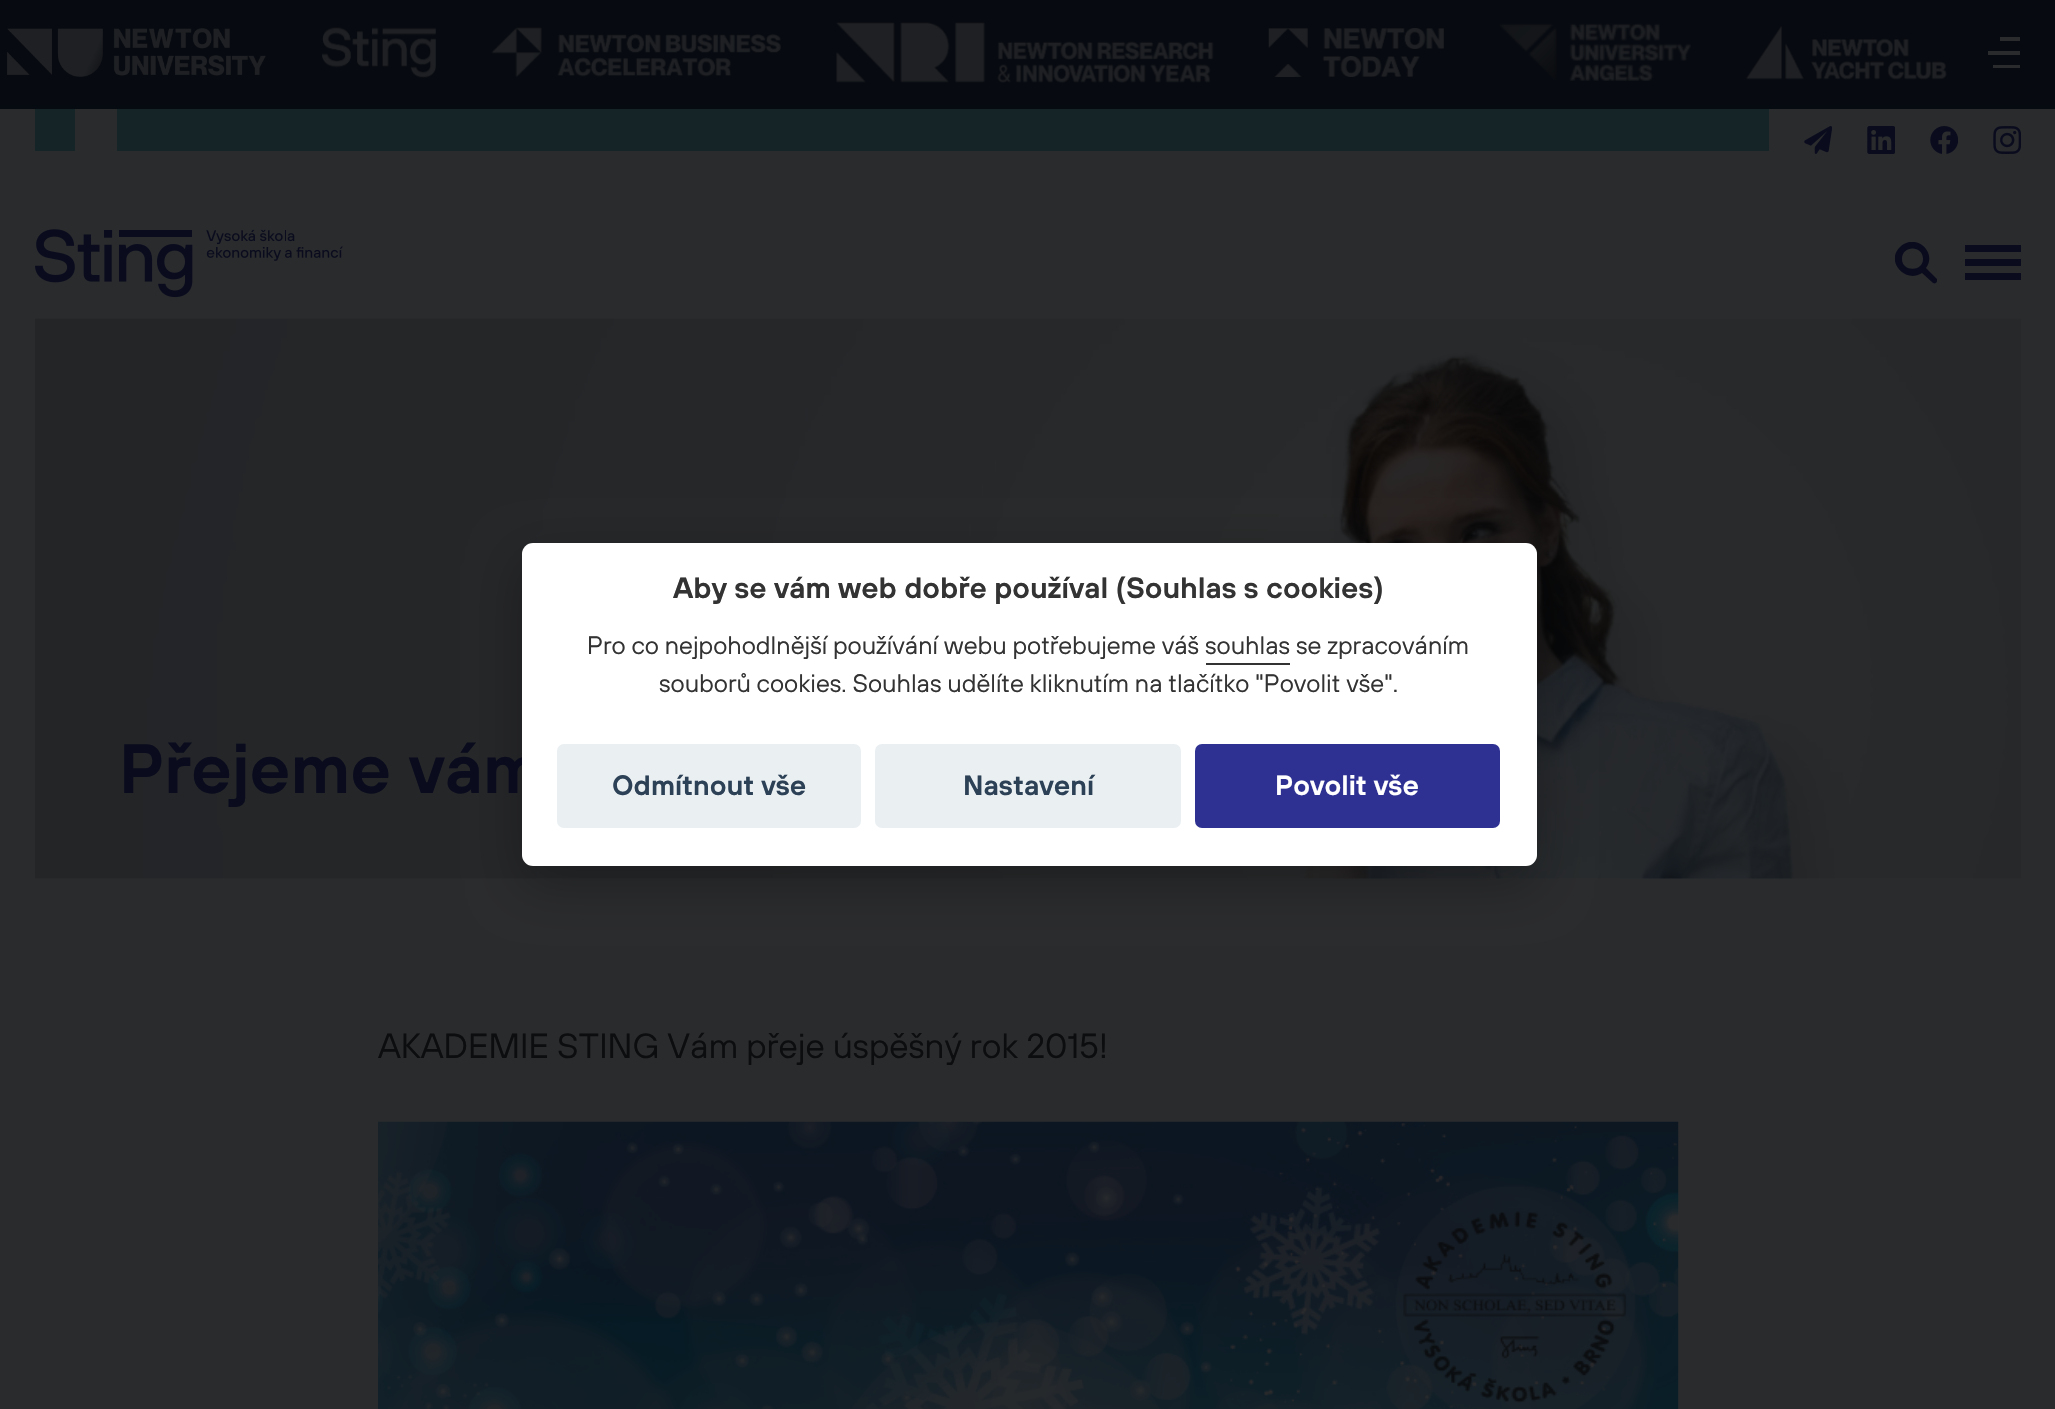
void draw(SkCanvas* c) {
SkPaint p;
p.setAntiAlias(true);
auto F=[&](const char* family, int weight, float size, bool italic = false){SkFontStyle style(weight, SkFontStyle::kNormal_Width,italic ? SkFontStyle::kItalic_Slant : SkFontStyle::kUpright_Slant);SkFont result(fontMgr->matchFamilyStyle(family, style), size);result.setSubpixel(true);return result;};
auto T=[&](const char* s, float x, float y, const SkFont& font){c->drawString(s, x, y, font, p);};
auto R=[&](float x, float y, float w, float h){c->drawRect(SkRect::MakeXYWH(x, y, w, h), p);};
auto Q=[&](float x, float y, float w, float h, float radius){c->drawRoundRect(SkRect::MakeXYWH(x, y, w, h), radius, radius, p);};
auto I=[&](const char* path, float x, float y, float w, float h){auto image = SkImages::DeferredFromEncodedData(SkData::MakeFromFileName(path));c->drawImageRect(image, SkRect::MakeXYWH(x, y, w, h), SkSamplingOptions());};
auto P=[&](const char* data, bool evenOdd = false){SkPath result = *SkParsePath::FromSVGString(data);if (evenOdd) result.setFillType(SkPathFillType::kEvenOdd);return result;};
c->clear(0xff2a2b2d);
I("13.png",35,318,1987,561);
p.setColor(0x47020203);
p.setMaskFilter(SkMaskFilter::MakeBlur(kNormal_SkBlurStyle, 26));
c->drawRoundRect(SkRect::MakeXYWH(522,560,1015,324),11,11,p);
p.setMaskFilter(nullptr);
auto f1 = F("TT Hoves",600,69.5);
p.setColor(0xff0a0c1d);
T("Přejeme vám",119,793,f1);
p.setColor(0xffffffff);
Q(522,543,1015,323,11);
auto f2 = F("TT Hoves",600,29.4);
p.setColor(0xff333333);
T("Aby se vám web dobře používal (Souhlas s cookies)",673,598,f2);
auto f3 = F("TT Hoves",400,25.2);
T("Pro co nejpohodlnější používání webu potřebujeme váš",587,654,f3);
T("souhlas se zpracováním",1205,654,f3);
R(1206,663,84,2);
T("souborů cookies. Souhlas udělíte kliknutím na tlačítko \"Povolit vše\".",659,692,f3);
p.setColor(0xffeaeff2);
Q(557,744,304,84,7);
auto f4 = F("TT Hoves",600,28);
p.setColor(0xff2d4156);
T("Odmítnout vše",612,795,f4);
p.setColor(0xffeaeff2);
Q(875,744,306,84,7);
p.setColor(0xff2d4156);
T("Nastavení",963,795,f4);
p.setColor(0xff2e3192);
Q(1195,744,305,84,7);
p.setColor(0xffffffff);
T("Povolit vše",1275,795,f4);
p.setColor(0xff070a10);
R(0,0,2055,105);
p.setColor(0xff050b11);
R(0,105,2055,4);
I("1.png",7,28,259,49);
I("2.png",322,27,114,51);
I("3.png",491,27,290,51);
I("4.png",836,22,378,61);
I("5.png",1268,28,176,49);
I("6.png",1499,23,192,58);
I("7.png",1746,26,201,54);
p.setColor(0xff2a2b2d);
R(1993,65,27,3);
R(2000,37,20,4);
R(1988,51,32,4);
p.setColor(0xff152426);
R(35,109,40,42);
R(117,109,1652,42);
I("8.png",1804,126,28,28);
I("9.png",1867,126,28,28);
I("10.png",1930,126,28,28);
I("11.png",1993,126,28,28);
I("12.png",35,229,308,69);
c->save();
c->clipRect(SkRect::MakeXYWH(1895,242,42,42));
p.setColor(0xff0a0c1d);
c->drawPath(P("M1936 278l-10-10c12-16-11-36-26-21c-15 14 5 37 22 26l11 10c3 2 6-3 3-5zm-34-19c0-14 21-14 21 0c0 13-21 13-21 0z"),p);
c->restore();
R(1965,245,56,7);
R(1965,259,56,7);
R(1965,273,56,7);
auto f5 = F("TT Hoves",400,35);
p.setColor(0xff0b0d0e);
T("AKADEMIE STING Vám přeje úspěšný rok 2015!",378,1058,f5);
I("14.png",378,1121,1301,288);
}
